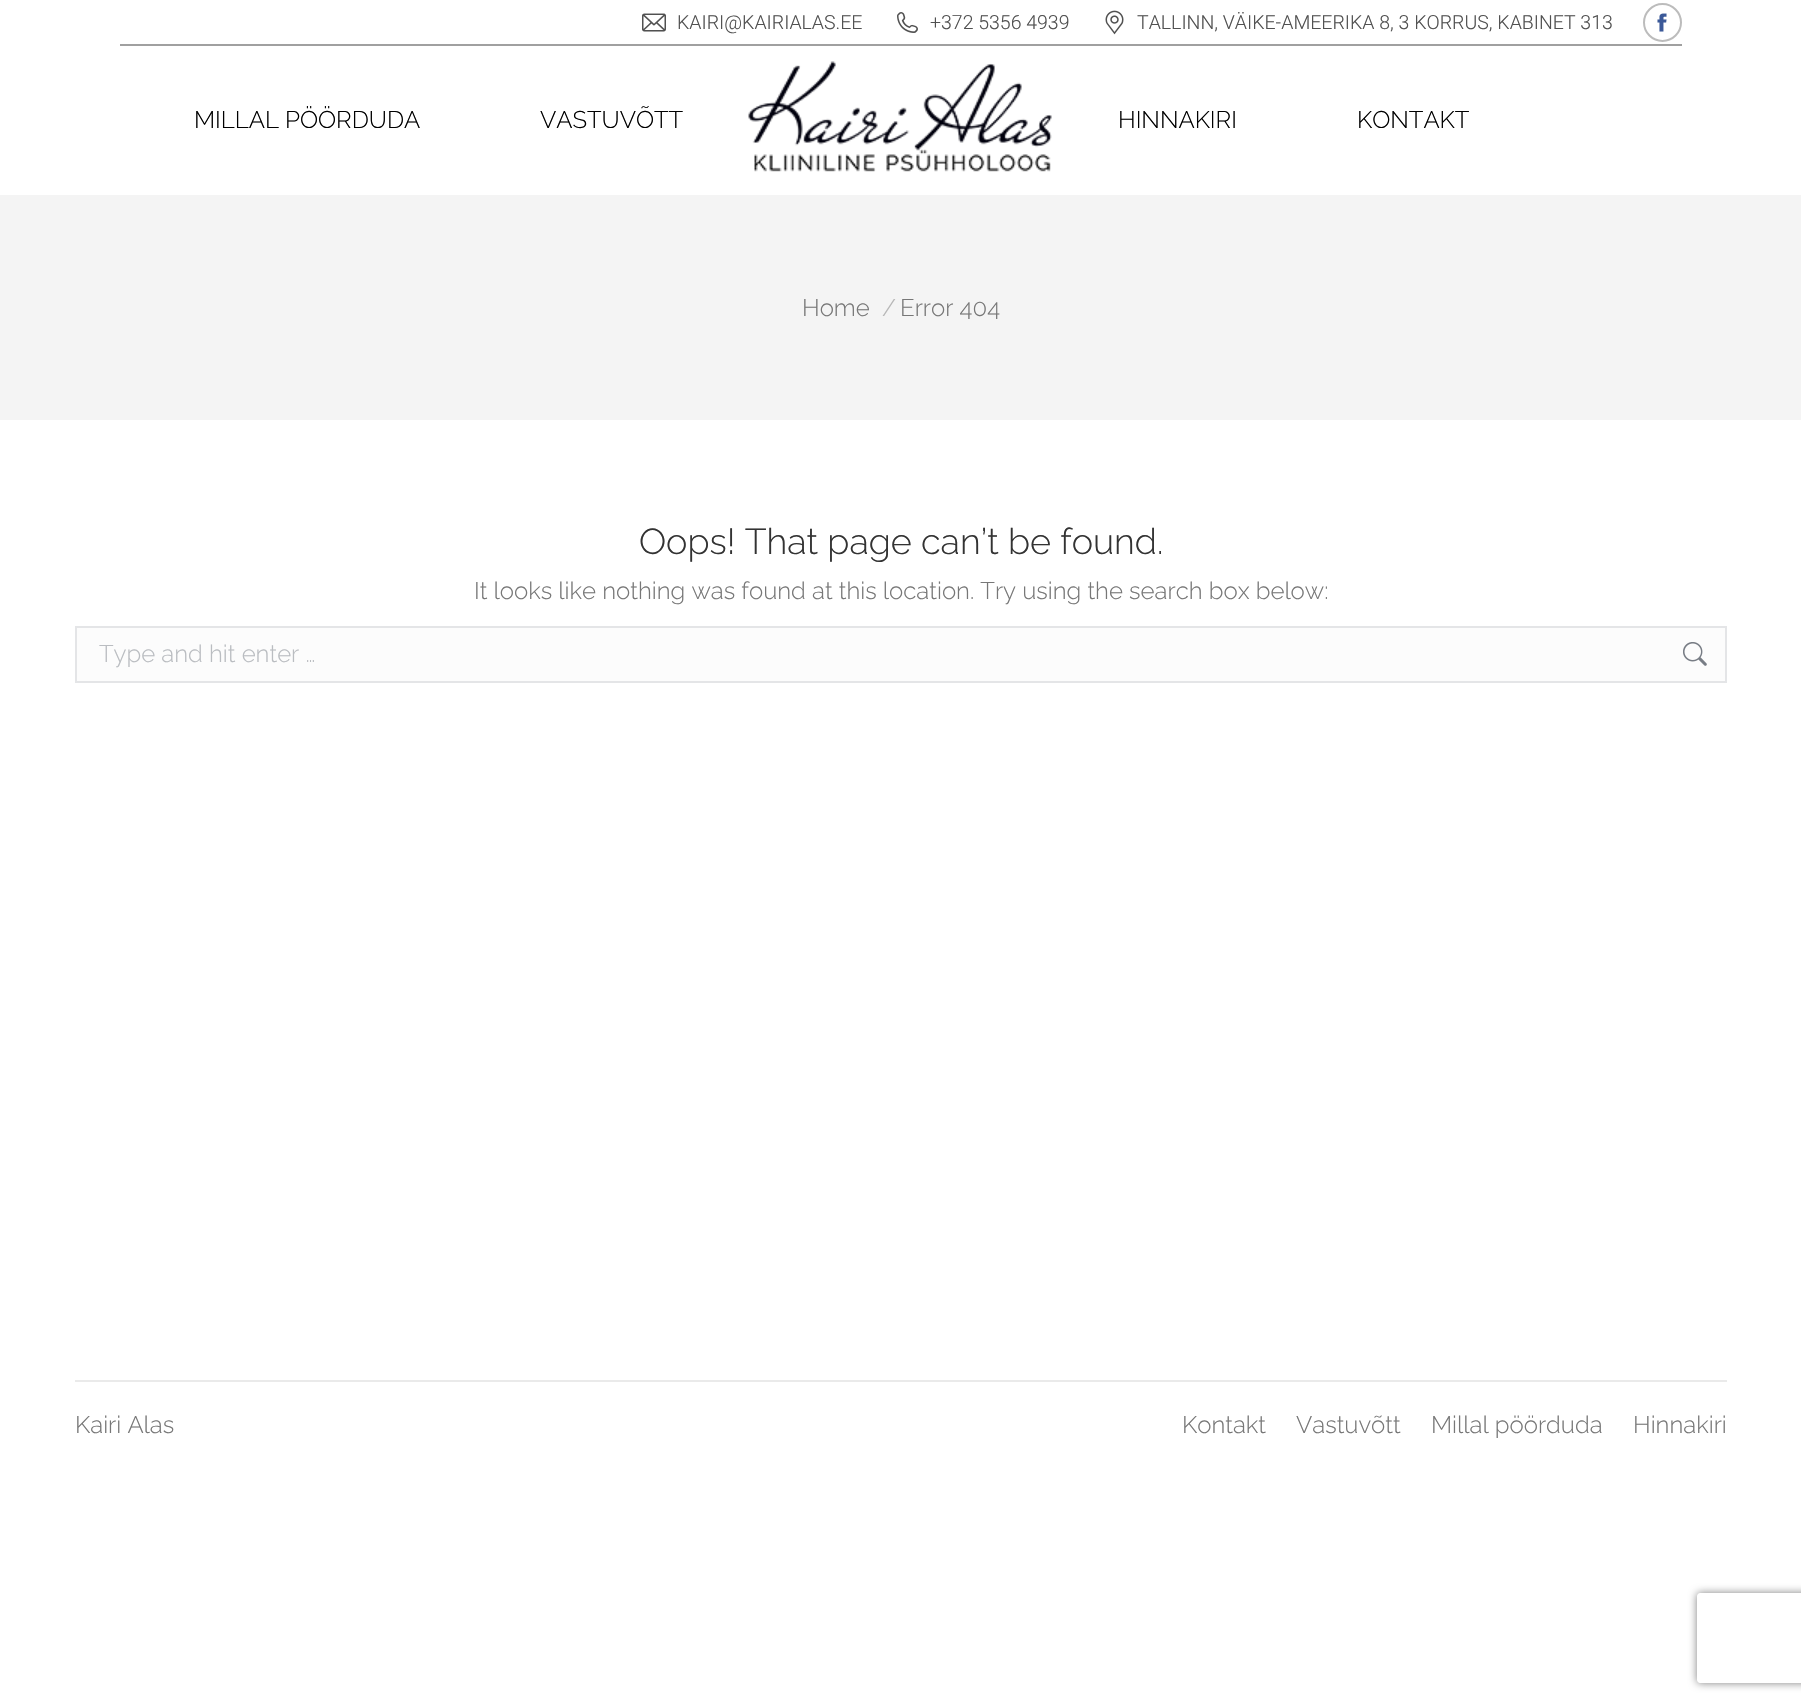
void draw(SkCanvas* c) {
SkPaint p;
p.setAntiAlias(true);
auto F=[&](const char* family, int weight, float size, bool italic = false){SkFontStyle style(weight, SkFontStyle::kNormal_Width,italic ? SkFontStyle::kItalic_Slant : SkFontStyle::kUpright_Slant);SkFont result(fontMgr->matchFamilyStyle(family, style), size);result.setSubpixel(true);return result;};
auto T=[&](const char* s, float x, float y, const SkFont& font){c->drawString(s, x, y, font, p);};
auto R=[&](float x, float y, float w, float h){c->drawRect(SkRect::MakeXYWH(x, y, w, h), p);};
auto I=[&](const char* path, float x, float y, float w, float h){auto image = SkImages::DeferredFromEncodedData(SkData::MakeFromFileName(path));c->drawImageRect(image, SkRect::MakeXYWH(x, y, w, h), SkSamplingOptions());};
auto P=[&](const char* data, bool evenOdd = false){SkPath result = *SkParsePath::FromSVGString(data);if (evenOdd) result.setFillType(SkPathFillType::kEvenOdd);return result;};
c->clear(0xffffffff);
I("1.png",642,13,24,19);
auto f1 = F("Roboto",300,19.5);
p.setColor(0xff515151);
T("KAIRI@KAIRIALAS.EE",677,29,f1);
I("2.png",897,12,21,21);
T("+372 5356 4939",930,29,f1);
I("3.png",1105,10,19,25);
T("TALLINN, VÄIKE-AMEERIKA 8, 3 KORRUS, KABINET 313",1137,29,f1);
p.setStroke(true);
p.setStrokeWidth(2);
p.setColor(0xffbcbcbc);
c->drawCircle(1662.5,22.5,18.5,p);
I("4.png",1657,13,10,19);
p.setStroke(false);
p.setColor(0xffa0a0a0);
R(120,44,1562,2);
auto f2 = F("Raleway",300,24);
p.setColor(0xff000000);
T("MILLAL PÖÖRDUDA",194,128,f2);
T("VASTUVÕTT",540,128,f2);
I("5.png",748,61,304,111);
T("HINNAKIRI",1118,128,f2);
T("KONTAKT",1357,128,f2);
p.setColor(0xfff4f4f4);
R(0,195,1801,225);
p.setColor(0xff777777);
T("Home",802,316,f2);
p.setColor(0xffb6b6b6);
T("/",882,316,f2);
p.setColor(0xff777777);
T("Error 404",900,316,f2);
auto f3 = F("Raleway",300,36);
p.setColor(0xff333333);
T("Oops! That page can’t be found.",639,554,f3);
p.setColor(0xff777777);
T("It looks like nothing was found at this location. Try using the search box below:",474,599,f2);
p.setColor(0xfffcfcfc);
c->drawRect(SkRect::MakeXYWH(76,627,1650,55),p);
p.setStroke(true);
p.setColor(0xffe4e5e7);
c->drawRect(SkRect::MakeXYWH(76,627,1650,55),p);
p.setStroke(false);
p.setColor(0xffbabdc1);
T("Type and hit enter …",99,662,f2);
I("6.png",1683,642,24,24);
p.setColor(0xffeaeaea);
R(75,1380,1652,2);
p.setColor(0xff777777);
T("Kairi Alas",75,1433,f2);
T("Kontakt",1182,1433,f2);
T("Vastuvõtt",1296,1433,f2);
T("Millal pöörduda",1431,1433,f2);
T("Hinnakiri",1633,1433,f2);
c->save();
c->clipPath(P("M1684 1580h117v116h-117zm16 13h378c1.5 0 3 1.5 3 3v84c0 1.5-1.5 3-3 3h-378c-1.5 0-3-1.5-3-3v-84c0-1.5 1.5-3 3-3z",true),true);
p.setColor(0xff808080);
p.setMaskFilter(SkMaskFilter::MakeBlur(kNormal_SkBlurStyle, 4));
c->drawRoundRect(SkRect::MakeXYWH(1697,1593,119,90),3,3,p);
p.setMaskFilter(nullptr);
c->restore();
}
